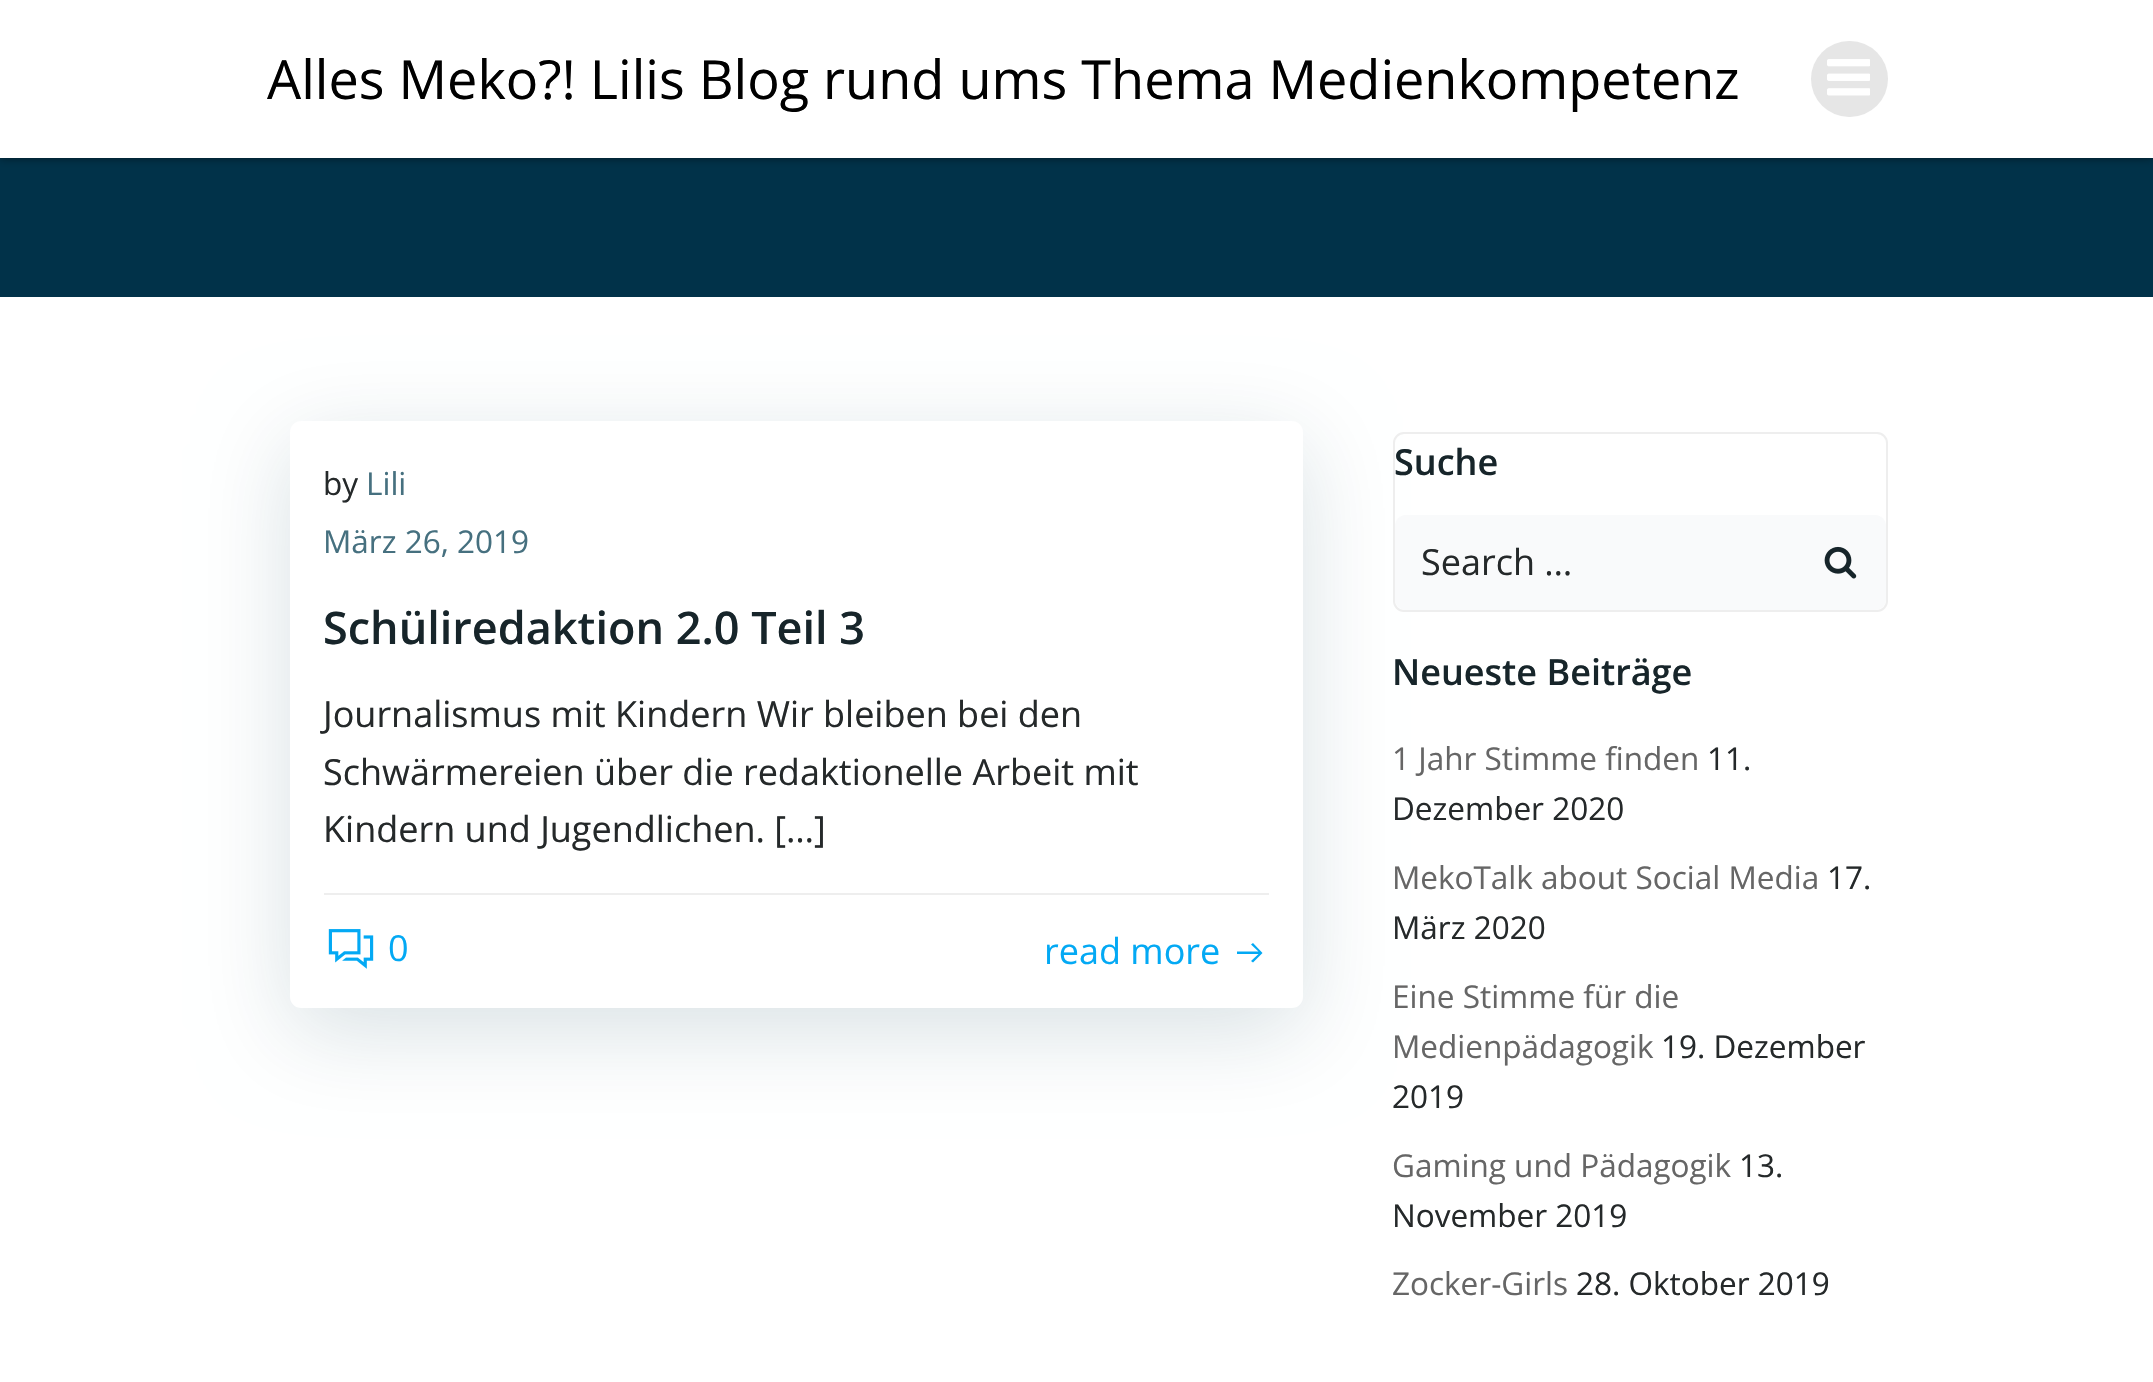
void draw(SkCanvas* c) {
SkPaint p;
p.setAntiAlias(true);
auto F=[&](const char* family, int weight, float size, bool italic = false){SkFontStyle style(weight, SkFontStyle::kNormal_Width,italic ? SkFontStyle::kItalic_Slant : SkFontStyle::kUpright_Slant);SkFont result(fontMgr->matchFamilyStyle(family, style), size);result.setSubpixel(true);return result;};
auto T=[&](const char* s, float x, float y, const SkFont& font){c->drawString(s, x, y, font, p);};
auto R=[&](float x, float y, float w, float h){c->drawRect(SkRect::MakeXYWH(x, y, w, h), p);};
auto Q=[&](float x, float y, float w, float h, float radius){c->drawRoundRect(SkRect::MakeXYWH(x, y, w, h), radius, radius, p);};
auto I=[&](const char* path, float x, float y, float w, float h){auto image = SkImages::DeferredFromEncodedData(SkData::MakeFromFileName(path));c->drawImageRect(image, SkRect::MakeXYWH(x, y, w, h), SkSamplingOptions());};
auto P=[&](const char* data, bool evenOdd = false){SkPath result = *SkParsePath::FromSVGString(data);if (evenOdd) result.setFillType(SkPathFillType::kEvenOdd);return result;};
c->clear(0xffffffff);
p.setColor(0xff013249);
R(0,158,2153,139);
p.setColor(0x80000000);
p.setMaskFilter(SkMaskFilter::MakeBlur(kNormal_SkBlurStyle, 4.5));
c->drawRect(SkRect::MakeXYWH(0,0,2153,158),p);
p.setMaskFilter(nullptr);
p.setColor(0xffffffff);
R(0,0,2153,158);
auto f1 = F("Open Sans",400,54);
p.setColor(0xff000000);
T("Alles Meko?! Lilis Blog rund ums Thema Medienkompetenz",267,99,f1);
p.setColor(0xffe6e6e6);
Q(1811,41,77,76,38);
I("1.png",1827,59,43,37);
p.setColor(0x2601334a);
p.setMaskFilter(SkMaskFilter::MakeBlur(kNormal_SkBlurStyle, 45));
c->drawRoundRect(SkRect::MakeXYWH(290,443,1013,588),11,11,p);
p.setMaskFilter(nullptr);
p.setColor(0xffffffff);
Q(290,421,1013,587,11);
p.setColor(0xffeeeeee);
R(324,893,945,2);
auto f2 = F("Open Sans",400,31.5);
p.setColor(0xff25292a);
T("by",323,495,f2);
p.setColor(0xff46707f);
T("Lili",366,495,f2);
T("März 26, 2019",323,553,f2);
auto f3 = F("Open Sans",600,45);
p.setColor(0xff17252a);
T("Schüliredaktion 2.0 Teil 3",323,644,f3);
auto f4 = F("Open Sans",400,36);
p.setColor(0xff25292a);
T("Journalismus mit Kindern Wir bleiben bei den",323,727,f4);
T("Schwärmereien über die redaktionelle Arbeit mit",323,785,f4);
T("Kindern und Jugendlichen. […]",323,842,f4);
I("2.png",328,929,46,40);
p.setColor(0xff03a9f4);
T("0",388,961,f4);
T("read more",1044,964,f4);
c->drawPath(P("M1253 943l9.5 10l-9.5 9.5l-2-1.5l7.5-7h-21.5v-2.5h21.5l-7.5-7z"),p);
p.setStroke(true);
p.setStrokeWidth(2);
p.setColor(0xffeeeeee);
c->drawRoundRect(SkRect::MakeXYWH(1394,433,493,178),10,10,p);
auto f5 = F("Open Sans",600,36);
p.setStroke(false);
p.setColor(0xff17252a);
T("Suche",1394,475,f5);
p.setColor(0xfff9fafb);
c->drawPath(P("M1406 515h390v95h-390c-6 0-11-5-11-11v-73c0-6 5-11 11-11z"),p);
p.setColor(0xff25292a);
T("Search …",1421,575,f4);
p.setColor(0xfff9fafb);
c->drawPath(P("M1796 515h79c6 0 11 5 11 11v73c0 6-5 11-11 11h-79z"),p);
I("3.png",1824,546,33,33);
p.setColor(0xff17252a);
T("Neueste Beiträge",1392,685,f5);
p.setColor(0xff666666);
T("1 Jahr Stimme finden",1392,770,f2);
p.setColor(0xff25292a);
T("11.",1707,770,f2);
T("Dezember 2020",1392,820,f2);
p.setColor(0xff666666);
T("MekoTalk about Social Media",1392,889,f2);
p.setColor(0xff25292a);
T("17.",1827,889,f2);
T("März 2020",1392,939,f2);
p.setColor(0xff666666);
T("Eine Stimme für die",1392,1008,f2);
T("Medienpädagogik",1392,1058,f2);
p.setColor(0xff25292a);
T("19. Dezember",1661,1058,f2);
T("2019",1392,1108,f2);
p.setColor(0xff666666);
T("Gaming und Pädagogik",1392,1177,f2);
p.setColor(0xff25292a);
T("13.",1739,1177,f2);
T("November 2019",1392,1227,f2);
p.setColor(0xff666666);
T("Zocker-Girls",1392,1295,f2);
p.setColor(0xff25292a);
T("28. Oktober 2019",1576,1295,f2);
}
